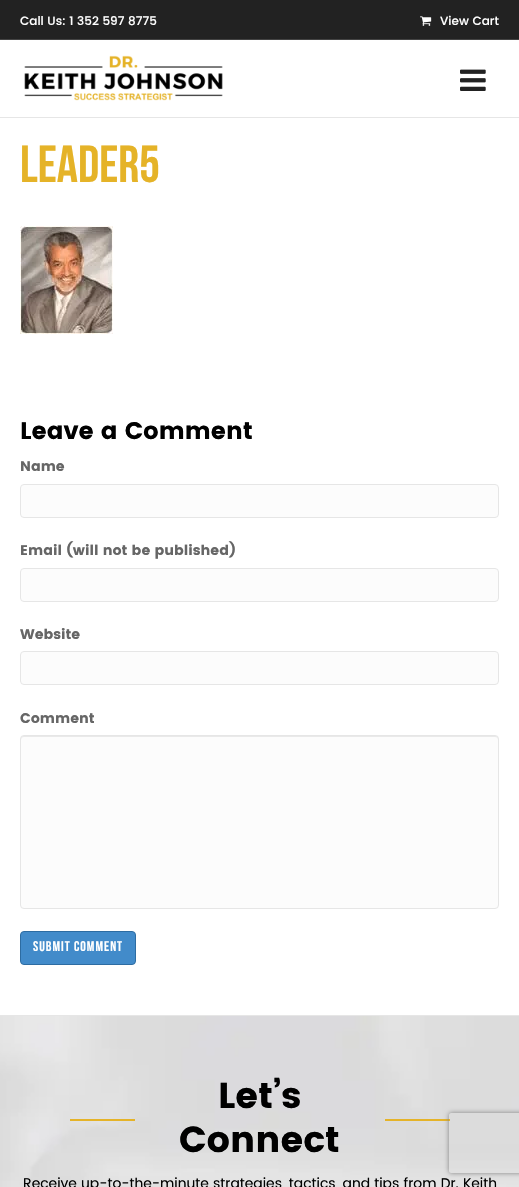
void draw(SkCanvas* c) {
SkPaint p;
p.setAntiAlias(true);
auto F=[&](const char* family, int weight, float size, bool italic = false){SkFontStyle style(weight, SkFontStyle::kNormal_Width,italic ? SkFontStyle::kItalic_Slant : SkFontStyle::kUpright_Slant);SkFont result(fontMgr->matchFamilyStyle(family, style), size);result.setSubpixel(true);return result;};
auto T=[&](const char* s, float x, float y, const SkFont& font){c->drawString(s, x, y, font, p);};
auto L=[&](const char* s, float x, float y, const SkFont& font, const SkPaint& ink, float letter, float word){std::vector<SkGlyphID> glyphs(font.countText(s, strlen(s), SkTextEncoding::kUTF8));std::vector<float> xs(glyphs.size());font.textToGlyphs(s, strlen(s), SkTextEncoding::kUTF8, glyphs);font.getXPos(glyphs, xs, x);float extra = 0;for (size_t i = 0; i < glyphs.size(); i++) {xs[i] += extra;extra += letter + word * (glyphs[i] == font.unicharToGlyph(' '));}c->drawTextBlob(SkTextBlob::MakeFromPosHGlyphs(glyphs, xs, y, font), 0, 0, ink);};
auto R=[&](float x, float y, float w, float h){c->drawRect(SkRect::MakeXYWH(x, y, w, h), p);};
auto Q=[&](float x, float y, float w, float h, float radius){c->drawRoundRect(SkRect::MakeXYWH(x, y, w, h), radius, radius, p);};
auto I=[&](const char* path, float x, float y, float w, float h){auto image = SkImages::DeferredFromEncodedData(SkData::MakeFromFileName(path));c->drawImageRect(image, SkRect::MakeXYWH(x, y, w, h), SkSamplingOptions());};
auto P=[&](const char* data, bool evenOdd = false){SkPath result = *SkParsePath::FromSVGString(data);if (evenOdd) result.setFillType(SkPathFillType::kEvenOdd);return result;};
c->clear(0xffffffff);
p.setColor(0xff222222);
R(0,0,519,39);
p.setColor(0xff434343);
R(0,39,519,1);
auto f1 = F("Poppins",500,12);
p.setColor(0xffffffff);
T("Call Us: 1 352 597 8775",20,25,f1);
I("1.png",420,16,12,10);
T("View Cart",440,25,f1);
p.setColor(0xffe6e6e6);
R(0,117,519,1);
I("2.png",24,55,199,46);
I("3.png",460,69,26,22);
auto f2 = F("Bebas Neue",700,52);
p.setColor(0xffe5b328);
T("Leader5",20,182,f2);
I("4.png",20,226,93,108);
auto f3 = F("Poppins",700,24);
p.setColor(0xff000000);
T("Leave a Comment",20,439,f3);
auto f4 = F("Poppins",700,14);
p.setColor(0xff666666);
T("Name",20,471,f4);
p.setColor(0xfffcfcfc);
c->drawRoundRect(SkRect::MakeXYWH(20.5,484.5,478,33),3.5,3.5,p);
p.setStroke(true);
p.setStrokeWidth(1);
p.setColor(0xffe6e6e6);
c->drawRoundRect(SkRect::MakeXYWH(20.5,484.5,478,33),3.5,3.5,p);
p.setStroke(false);
p.setColor(0xff666666);
T("Email (will not be published)",20,555,f4);
p.setColor(0xfffcfcfc);
c->drawRoundRect(SkRect::MakeXYWH(20.5,568.5,478,33),3.5,3.5,p);
p.setStroke(true);
p.setColor(0xffe6e6e6);
c->drawRoundRect(SkRect::MakeXYWH(20.5,568.5,478,33),3.5,3.5,p);
p.setStroke(false);
p.setColor(0xff666666);
T("Website",20,639,f4);
p.setColor(0xfffcfcfc);
c->drawRoundRect(SkRect::MakeXYWH(20.5,651.5,478,33),3.5,3.5,p);
p.setStroke(true);
p.setColor(0xffe6e6e6);
c->drawRoundRect(SkRect::MakeXYWH(20.5,651.5,478,33),3.5,3.5,p);
p.setStroke(false);
p.setColor(0xff666666);
T("Comment",20,723,f4);
p.setColor(0xfffcfcfc);
Q(20,735,479,174,4);
p.setColor(0xffe9e9e9);
c->drawPath(P("M24 737h471c2 0 3 1 3 3v-1c0-2-1-3-3-3h-471c-2 0-3 1-3 3v1c0-2 1-3 3-3z"),p);
p.setStroke(true);
p.setColor(0xffe6e6e6);
c->drawRoundRect(SkRect::MakeXYWH(20.5,735.5,478,173),3.5,3.5,p);
p.setStroke(false);
p.setColor(0xff428bca);
c->drawRoundRect(SkRect::MakeXYWH(20.5,931.5,115,33),3.5,3.5,p);
p.setStroke(true);
p.setColor(0xff2d6ca2);
c->drawRoundRect(SkRect::MakeXYWH(20.5,931.5,115,33),3.5,3.5,p);
auto f5 = F("Bebas Neue",700,14);
p.setStroke(false);
p.setColor(0xffffffff);
L("Submit Comment",33,951,f5,p,1,0);
I("5.png",0,1016,519,171);
p.setColor(0xffe6e6e6);
R(0,1015,519,1);
auto f6 = F("Poppins",700,36);
p.setColor(0xff000000);
T("Let’s",218,1108,f6);
p.setColor(0xffe5b328);
R(70,1119,65,2);
R(385,1119,65,2);
p.setColor(0xff000000);
T("Connect",179,1152,f6);
auto f7 = F("Poppins",400,14);
T("Receive up-to-the-minute strategies, tactics, and tips from Dr. Keith",23,1188,f7);
c->save();
c->clipPath(P("M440 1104h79v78h-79zm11 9h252c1 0 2 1 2 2v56c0 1-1 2-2 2h-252c-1 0-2-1-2-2v-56c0-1 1-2 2-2z",true),true);
p.setColor(0xff808080);
p.setMaskFilter(SkMaskFilter::MakeBlur(kNormal_SkBlurStyle, 2.5));
c->drawRoundRect(SkRect::MakeXYWH(449,1113,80,60),2,2,p);
p.setMaskFilter(nullptr);
c->restore();
}
